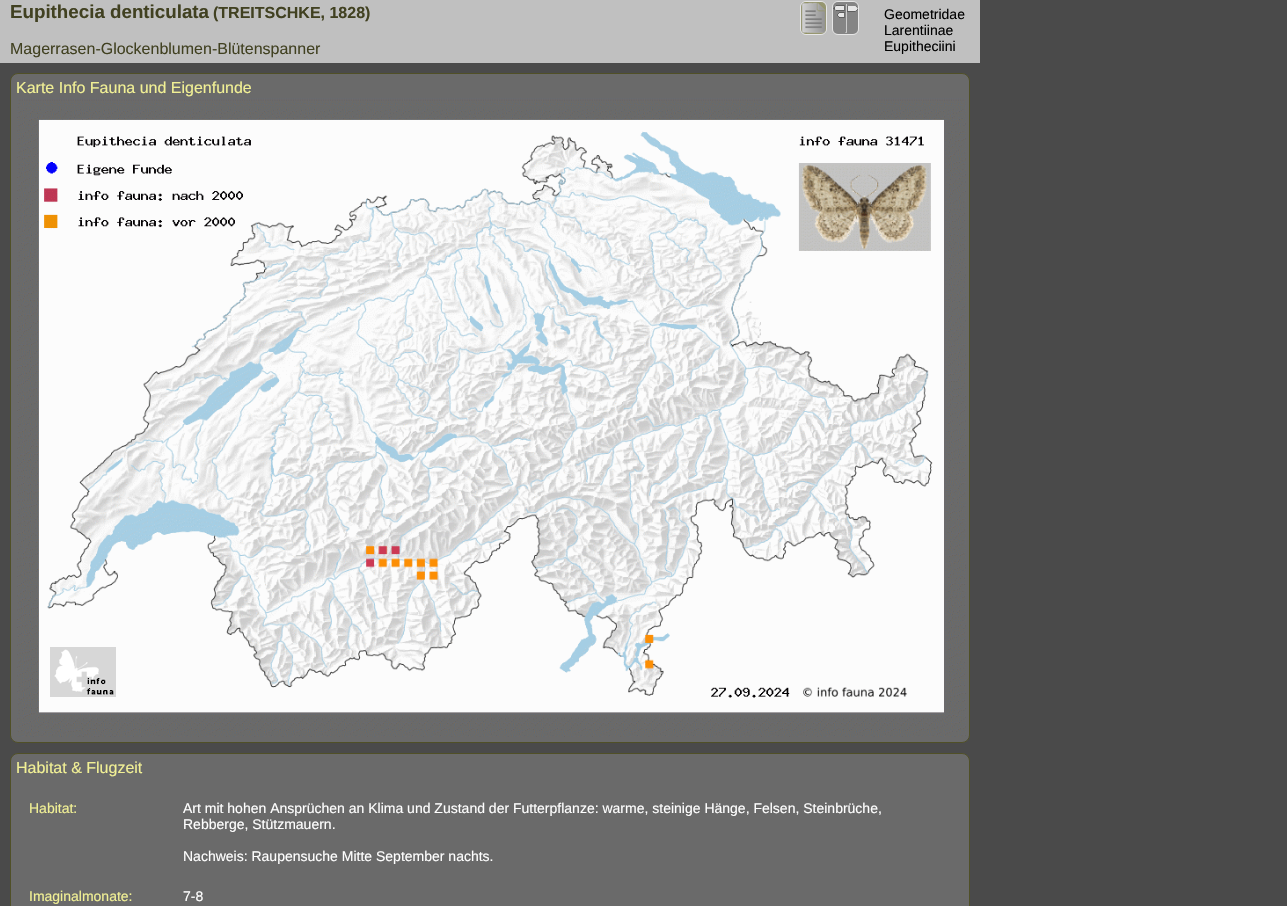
void draw(SkCanvas* c) {
SkPaint p;
p.setAntiAlias(true);
auto F=[&](const char* family, int weight, float size, bool italic = false){SkFontStyle style(weight, SkFontStyle::kNormal_Width,italic ? SkFontStyle::kItalic_Slant : SkFontStyle::kUpright_Slant);SkFont result(fontMgr->matchFamilyStyle(family, style), size);result.setSubpixel(true);return result;};
auto T=[&](const char* s, float x, float y, const SkFont& font){c->drawString(s, x, y, font, p);};
auto R=[&](float x, float y, float w, float h){c->drawRect(SkRect::MakeXYWH(x, y, w, h), p);};
auto I=[&](const char* path, float x, float y, float w, float h){auto image = SkImages::DeferredFromEncodedData(SkData::MakeFromFileName(path));c->drawImageRect(image, SkRect::MakeXYWH(x, y, w, h), SkSamplingOptions());};
c->clear(0xff4a4a4a);
p.setColor(0xffc0c0c0);
R(0,0,980,63);
auto f1 = F("Liberation Sans",700,18.75);
p.setColor(0xff414121);
T("Eupithecia denticulata",10,18,f1);
auto f2 = F("Liberation Sans",700,16);
T("(TREITSCHKE, 1828)",213,18,f2);
p.setStroke(true);
p.setStrokeWidth(1);
p.setColor(0xffe6e6e6);
c->drawRoundRect(SkRect::MakeXYWH(800.5,1.5,26,33),5.5,5.5,p);
I("1.png",801,2,25,32);
c->drawRoundRect(SkRect::MakeXYWH(832.5,1.5,26,33),5.5,5.5,p);
I("2.png",833,2,25,32);
auto f3 = F("Liberation Sans",400,14);
p.setStroke(false);
p.setColor(0xff000000);
T("Geometridae",884,19,f3);
T("Larentiinae",884,35,f3);
T("Eupitheciini",884,51,f3);
auto f4 = F("Liberation Sans",400,16);
p.setColor(0xff414121);
T("Magerrasen-Glockenblumen-Blütenspanner",10,54,f4);
p.setColor(0xff6a6a6a);
c->drawRoundRect(SkRect::MakeXYWH(10.5,73.5,959,669),7.5,7.5,p);
p.setStroke(true);
p.setColor(0xff505027);
c->drawRoundRect(SkRect::MakeXYWH(10.5,73.5,959,669),7.5,7.5,p);
p.setStroke(false);
p.setColor(0xfff1f095);
T("Karte Info Fauna und Eigenfunde",16,93,f4);
I("3.png",17,98,949,639);
I("4.png",50,647,66,50);
p.setColor(0xff6a6a6a);
c->drawRoundRect(SkRect::MakeXYWH(10.5,753.5,959,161),7.5,7.5,p);
p.setStroke(true);
p.setColor(0xff505027);
c->drawRoundRect(SkRect::MakeXYWH(10.5,753.5,959,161),7.5,7.5,p);
p.setStroke(false);
p.setColor(0xfff1f095);
T("Habitat & Flugzeit",16,773,f4);
T("Habitat:",29,813,f3);
p.setColor(0xffffffff);
T("Art mit hohen Ansprüchen an Klima und Zustand der Futterpflanze: warme, steinige Hänge, Felsen, Steinbrüche,",183,813,f3);
T("Rebberge, Stützmauern.",183,829,f3);
T("Nachweis: Raupensuche Mitte September nachts.",183,861,f3);
p.setColor(0xfff1f095);
T("Imaginalmonate:",29,901,f3);
p.setColor(0xffffffff);
T("7-8",183,901,f3);
}
